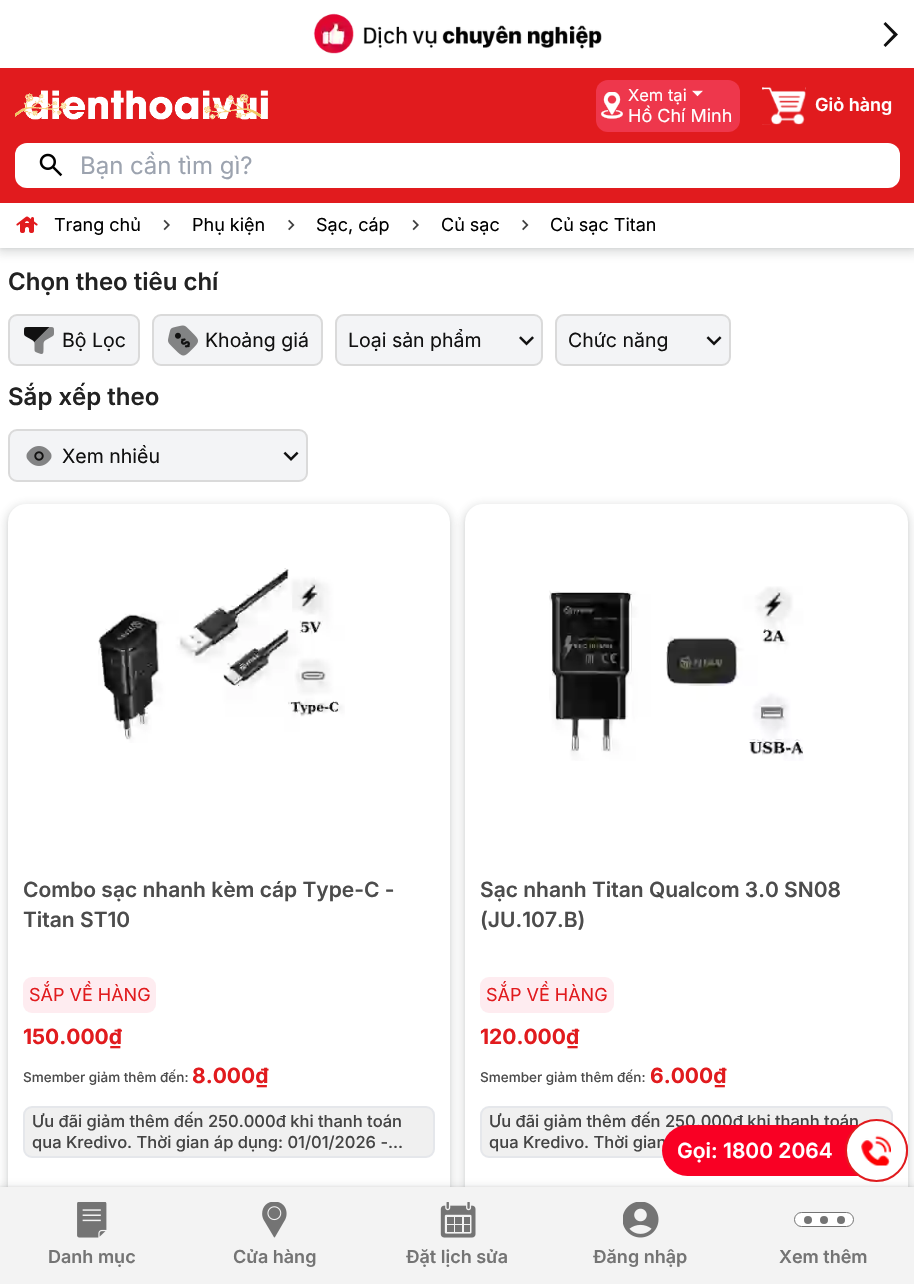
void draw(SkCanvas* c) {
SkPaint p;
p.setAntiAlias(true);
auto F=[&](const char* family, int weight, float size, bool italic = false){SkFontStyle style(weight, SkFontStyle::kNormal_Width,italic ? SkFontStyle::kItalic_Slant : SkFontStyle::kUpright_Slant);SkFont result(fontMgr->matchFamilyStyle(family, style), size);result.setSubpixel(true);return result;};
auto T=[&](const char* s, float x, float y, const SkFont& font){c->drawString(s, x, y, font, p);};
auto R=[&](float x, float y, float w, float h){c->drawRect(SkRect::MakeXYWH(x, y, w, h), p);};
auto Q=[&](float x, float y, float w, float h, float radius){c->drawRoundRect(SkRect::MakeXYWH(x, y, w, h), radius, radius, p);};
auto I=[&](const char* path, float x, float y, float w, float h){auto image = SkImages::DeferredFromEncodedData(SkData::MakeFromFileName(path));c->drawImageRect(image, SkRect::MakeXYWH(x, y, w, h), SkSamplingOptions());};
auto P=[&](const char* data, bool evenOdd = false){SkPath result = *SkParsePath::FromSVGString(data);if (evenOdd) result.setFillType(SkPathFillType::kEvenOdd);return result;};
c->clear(0xffffffff);
I("1.png",313,13,289,41);
p.setColor(0xff111111);
c->drawPath(P("M883.5 45l2 2l12.5-12.5l-12.5-12.5l-2 2l10 10.5z"),p);
p.setColor(0x263c4043);
p.setMaskFilter(SkMaskFilter::MakeBlur(kNormal_SkBlurStyle, 4.5));
c->drawRect(SkRect::MakeXYWH(-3,203,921,51),p);
p.setMaskFilter(nullptr);
p.setColor(0x1a3c4043);
p.setMaskFilter(SkMaskFilter::MakeBlur(kNormal_SkBlurStyle, 1.5));
c->drawRect(SkRect::MakeXYWH(0,204,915,45),p);
p.setMaskFilter(nullptr);
p.setColor(0xffe11b1e);
R(0,68,914,135);
I("2.png",15,90,253,30);
p.setColor(0xffee374c);
Q(596,80,144,52,12);
I("3.png",601,92,22,27);
auto f1 = F("Inter",400,16.5);
p.setColor(0xffffffff);
T("Xem tại",628,101,f1);
I("4.png",692,90,11,7);
auto f2 = F("Inter",400,18);
T("Hồ Chí Minh",628,122,f2);
I("5.png",762,87,44,38);
auto f3 = F("Inter",600,18);
T("Giỏ hàng",815,111,f3);
Q(15,143,885,45,12);
I("6.png",39,153,24,24);
auto f4 = F("Inter",400,24);
p.setColor(0xff9ca3af);
T("Bạn cần tìm gì?",80,174,f4);
p.setColor(0xffffffff);
R(0,203,914,45);
I("7.png",16,216,22,17);
p.setColor(0xff000000);
T("Trang chủ",54,231,f2);
I("8.png",163,219,7,12);
T("Phụ kiện",192,231,f2);
I("9.png",288,219,7,12);
T("Sạc, cáp",316,231,f2);
I("8.png",412,219,7,12);
T("Củ sạc",441,231,f2);
I("9.png",522,219,7,12);
T("Củ sạc Titan",550,231,f2);
auto f5 = F("Inter",600,24);
p.setColor(0xff222222);
T("Chọn theo tiêu chí",8,290,f5);
p.setColor(0xfff3f4f6);
c->drawRoundRect(SkRect::MakeXYWH(9,315,130,50),8,8,p);
p.setStroke(true);
p.setStrokeWidth(2);
p.setColor(0xffdadada);
c->drawRoundRect(SkRect::MakeXYWH(9,315,130,50),8,8,p);
I("10.png",24,327,30,27);
auto f6 = F("Inter",400,19.5);
p.setStroke(false);
p.setColor(0xff111111);
T("Bộ Lọc",62,347,f6);
p.setColor(0xfff3f4f6);
c->drawRoundRect(SkRect::MakeXYWH(153,315,169,50),8,8,p);
p.setStroke(true);
p.setColor(0xffdadada);
c->drawRoundRect(SkRect::MakeXYWH(153,315,169,50),8,8,p);
I("11.png",168,325,30,31);
p.setStroke(false);
p.setColor(0xff111111);
T("Khoảng giá",205,347,f6);
p.setColor(0xfff3f4f6);
c->drawRoundRect(SkRect::MakeXYWH(336,315,206,50),8,8,p);
p.setStroke(true);
p.setColor(0xffdadada);
c->drawRoundRect(SkRect::MakeXYWH(336,315,206,50),8,8,p);
p.setStroke(false);
p.setColor(0xff111111);
T("Loại sản phẩm",348,347,f6);
I("12.png",519,336,15,10);
p.setColor(0xfff3f4f6);
c->drawRoundRect(SkRect::MakeXYWH(556,315,174,50),8,8,p);
p.setStroke(true);
p.setColor(0xffdadada);
c->drawRoundRect(SkRect::MakeXYWH(556,315,174,50),8,8,p);
p.setStroke(false);
p.setColor(0xff111111);
T("Chức năng",568,347,f6);
I("13.png",706,336,16,10);
p.setColor(0xff222222);
T("Sắp xếp theo",8,405,f5);
p.setColor(0xfff3f4f6);
c->drawRoundRect(SkRect::MakeXYWH(9,430,298,51),8,8,p);
p.setStroke(true);
p.setColor(0xffdadada);
c->drawRoundRect(SkRect::MakeXYWH(9,430,298,51),8,8,p);
I("14.png",26,446,26,20);
p.setStroke(false);
p.setColor(0xff111111);
T("Xem nhiều",62,463,f6);
I("15.png",283,451,16,10);
p.setColor(0x263c4043);
p.setMaskFilter(SkMaskFilter::MakeBlur(kNormal_SkBlurStyle, 4.5));
c->drawRoundRect(SkRect::MakeXYWH(5,504,448,716),21,21,p);
p.setMaskFilter(nullptr);
p.setColor(0x1a3c4043);
p.setMaskFilter(SkMaskFilter::MakeBlur(kNormal_SkBlurStyle, 1.5));
c->drawRoundRect(SkRect::MakeXYWH(8,506,442,709),18,18,p);
p.setMaskFilter(nullptr);
p.setColor(0xffffffff);
Q(8,504,442,710,18);
I("16.png",98,568,247,175);
auto f7 = F("Inter",600,21);
p.setColor(0xff4c4c4c);
T("Combo sạc nhanh kèm cáp Type-C -",23,897,f7);
T("Titan ST10",23,927,f7);
p.setColor(0xfffeecf0);
Q(23,977,133,36,9);
p.setColor(0xffe11b1e);
T("SẮP VỀ HÀNG",29,1001,f2);
auto f8 = F("Inter",700,21);
T("150.000₫",23,1044,f8);
auto f9 = F("Inter",500,13.5);
p.setColor(0xff4c4c4c);
T("Smember giảm thêm đến:",23,1082,f9);
p.setColor(0xffe11b1e);
T("8.000₫",192,1083,f8);
p.setColor(0xfff0f0f0);
c->drawRoundRect(SkRect::MakeXYWH(24,1107,410,50),8,8,p);
p.setStroke(true);
p.setColor(0xffe5e7eb);
c->drawRoundRect(SkRect::MakeXYWH(24,1107,410,50),8,8,p);
auto f10 = F("Inter",500,16.5);
p.setStroke(false);
p.setColor(0xff444444);
T("Ưu đãi giảm thêm đến 250.000đ khi thanh toán",32,1127,f10);
T("qua Kredivo. Thời gian áp dụng: 01/01/2026 -…",32,1148,f10);
p.setColor(0x263c4043);
p.setMaskFilter(SkMaskFilter::MakeBlur(kNormal_SkBlurStyle, 4.5));
c->drawRoundRect(SkRect::MakeXYWH(462,504,449,716),21,21,p);
p.setMaskFilter(nullptr);
p.setColor(0x1a3c4043);
p.setMaskFilter(SkMaskFilter::MakeBlur(kNormal_SkBlurStyle, 1.5));
c->drawRoundRect(SkRect::MakeXYWH(465,506,443,709),18,18,p);
p.setMaskFilter(nullptr);
p.setColor(0xffffffff);
Q(465,504,443,710,18);
I("17.png",549,586,255,175);
p.setColor(0xff4c4c4c);
T("Sạc nhanh Titan Qualcom 3.0 SN08",480,897,f7);
T("(JU.107.B)",480,927,f7);
p.setColor(0xfffeecf0);
Q(480,977,134,36,9);
p.setColor(0xffe11b1e);
T("SẮP VỀ HÀNG",486,1001,f2);
T("120.000₫",480,1044,f8);
p.setColor(0xff4c4c4c);
T("Smember giảm thêm đến:",480,1082,f9);
p.setColor(0xffe11b1e);
T("6.000₫",650,1083,f8);
p.setColor(0xfff0f0f0);
c->drawRoundRect(SkRect::MakeXYWH(481,1107,411,50),8,8,p);
p.setStroke(true);
p.setColor(0xffe5e7eb);
c->drawRoundRect(SkRect::MakeXYWH(481,1107,411,50),8,8,p);
p.setStroke(false);
p.setColor(0xff444444);
T("Ưu đãi giảm thêm đến 250.000đ khi thanh toán",489,1127,f10);
T("qua Kredivo. Thời gian",489,1148,f10);
p.setColor(0xfff90024);
Q(662,1125,246,51,25.5);
p.setColor(0xffffffff);
T("Gọi: 1800 2064",677,1158,f7);
c->drawCircle(876.5,1150.5,30.5,p);
p.setStroke(true);
p.setColor(0xffe11b1e);
c->drawCircle(876.5,1150.5,30.5,p);
I("18.png",861,1135,30,31);
p.setStroke(false);
p.setColor(0x263c4043);
p.setMaskFilter(SkMaskFilter::MakeBlur(kNormal_SkBlurStyle, 4.5));
c->drawRect(SkRect::MakeXYWH(-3,1187,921,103),p);
p.setMaskFilter(nullptr);
p.setColor(0x4d3c4043);
p.setMaskFilter(SkMaskFilter::MakeBlur(kNormal_SkBlurStyle, 1.5));
c->drawRect(SkRect::MakeXYWH(0,1188,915,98),p);
p.setMaskFilter(nullptr);
p.setColor(0xfff3f3f3);
R(0,1187,914,97);
I("19.png",77,1202,30,36);
p.setColor(0xff747474);
T("Danh mục",48,1263,f3);
I("20.png",262,1202,25,36);
T("Cửa hàng",233,1263,f3);
I("21.png",440,1202,36,36);
T("Đặt lịch sửa",406,1263,f3);
I("22.png",623,1202,36,36);
T("Đăng nhập",593,1263,f3);
p.setColor(0xffffffff);
c->drawRoundRect(SkRect::MakeXYWH(794.5,1212.5,59,14),7,7,p);
p.setStroke(true);
p.setStrokeWidth(1);
p.setColor(0xff747474);
c->drawRoundRect(SkRect::MakeXYWH(794.5,1212.5,59,14),7,7,p);
p.setStroke(false);
c->drawCircle(808,1220,4,p);
c->drawCircle(824,1220,4,p);
c->drawCircle(841,1220,4,p);
T("Xem thêm",779,1263,f3);
}
